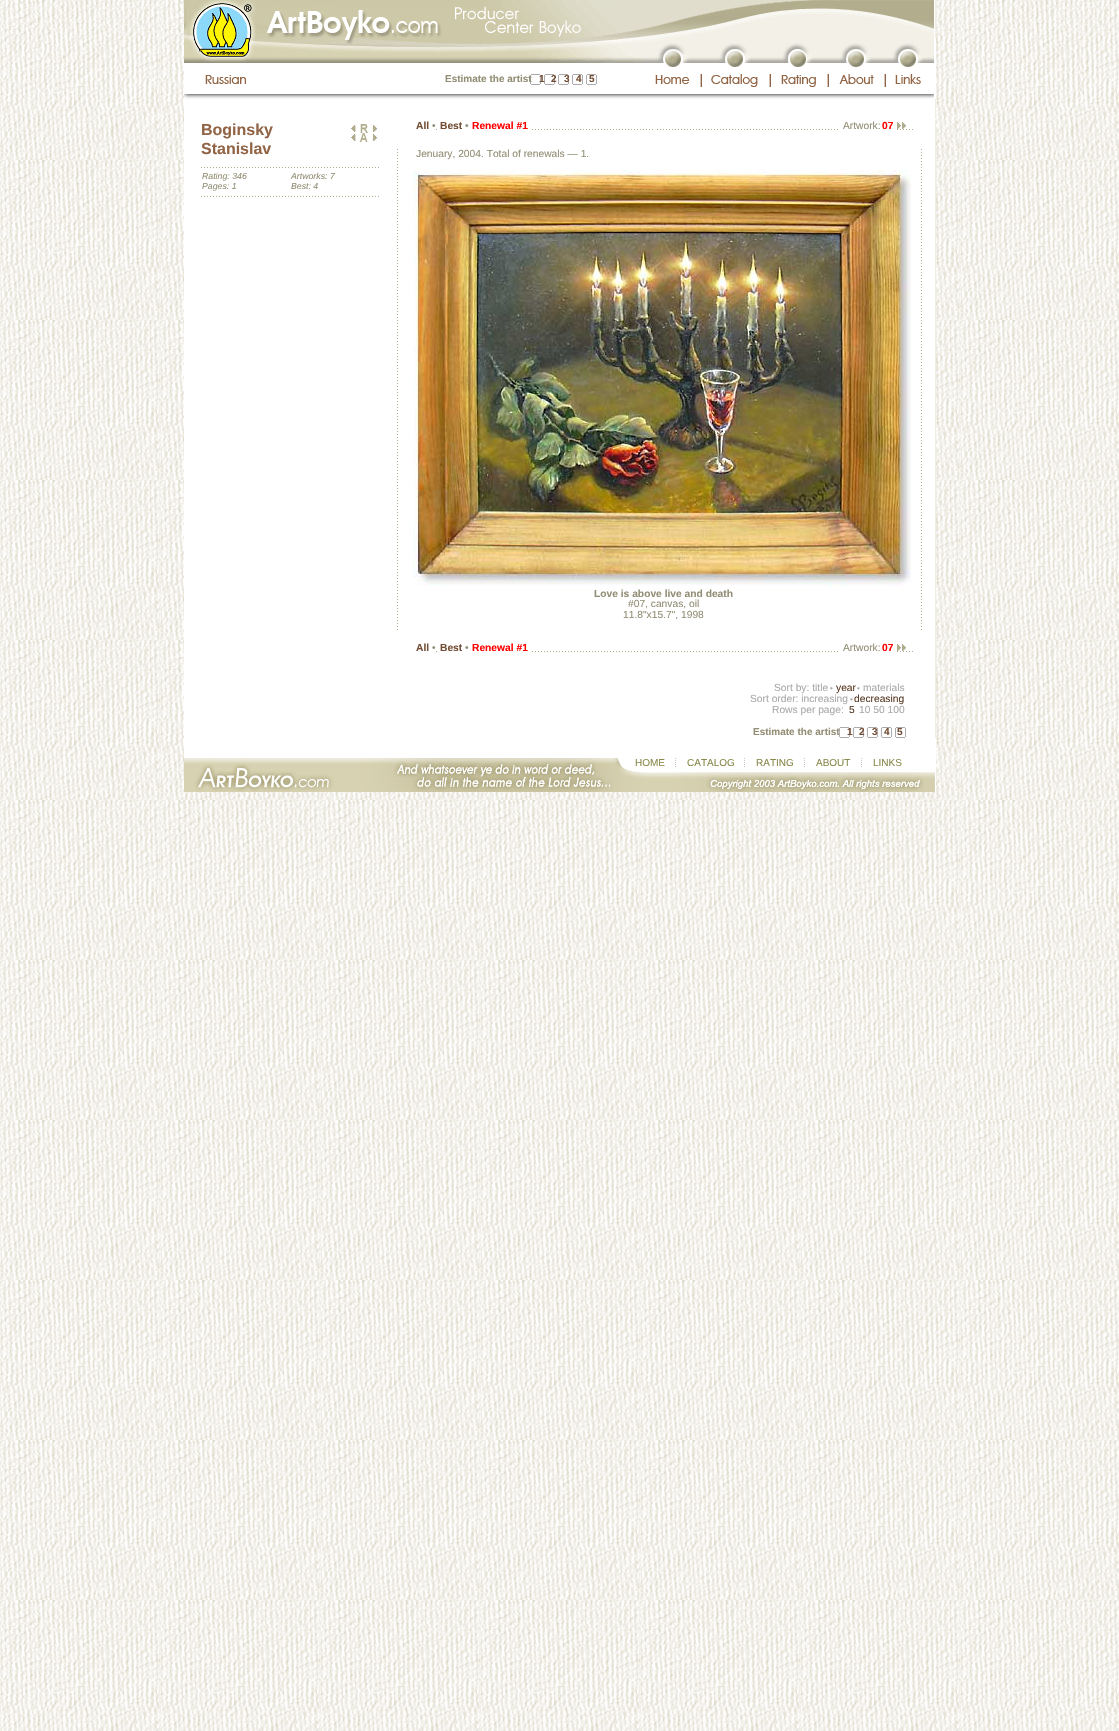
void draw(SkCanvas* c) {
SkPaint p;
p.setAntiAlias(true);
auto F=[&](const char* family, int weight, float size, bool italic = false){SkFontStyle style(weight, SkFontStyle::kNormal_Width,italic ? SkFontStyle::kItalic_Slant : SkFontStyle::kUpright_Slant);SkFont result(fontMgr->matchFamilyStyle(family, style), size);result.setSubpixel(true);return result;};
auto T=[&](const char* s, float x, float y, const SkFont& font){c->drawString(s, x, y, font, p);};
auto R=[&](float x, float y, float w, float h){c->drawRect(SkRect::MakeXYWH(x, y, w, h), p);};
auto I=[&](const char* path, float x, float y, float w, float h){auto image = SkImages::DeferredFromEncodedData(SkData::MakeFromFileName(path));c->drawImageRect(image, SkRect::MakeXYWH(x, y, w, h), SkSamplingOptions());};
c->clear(0xffffffff);
I("1.png",0,0,1119,1731);
p.setColor(0xffffffff);
R(184,0,752,792);
I("2.png",184,0,750,38);
p.setColor(0xfff0eee5);
R(935,0,1,38);
I("3.png",184,38,458,25);
I("4.png",642,38,292,12);
I("5.png",642,50,22,13);
I("6.png",664,50,18,17);
I("7.png",682,50,44,13);
I("8.png",726,50,18,17);
I("9.png",744,50,45,13);
I("10.png",789,50,18,17);
I("11.png",807,50,40,13);
I("12.png",847,50,18,17);
I("13.png",865,50,34,13);
I("14.png",899,50,18,17);
I("15.png",917,50,17,13);
I("16.png",205,75,41,9);
I("17.png",655,75,35,9);
I("18.png",700,74,2,13);
I("19.png",711,74,47,13);
I("18.png",769,74,2,13);
I("20.png",781,75,35,12);
I("18.png",827,74,2,13);
I("21.png",839,74,35,10);
I("18.png",884,74,2,13);
I("22.png",895,74,26,10);
I("23.png",530,74,67,11);
auto f1 = F("Liberation Sans",700,10);
p.setColor(0xff928e75);
T("Estimate the artist",445,82,f1);
p.setColor(0xff724d34);
T("1",539,82,f1);
T("2",551,82,f1);
T("3",564,82,f1);
T("4",576,82,f1);
T("5",589,82,f1);
I("24.png",184,94,750,5);
p.setColor(0xfff0eee5);
R(935,99,1,20);
auto f2 = F("Liberation Sans",700,16);
p.setColor(0xff916445);
T("Boginsky",201,135,f2);
T("Stanislav",201,154,f2);
I("25.png",351,125,5,7);
I("26.png",360,124,8,9);
I("27.png",372,125,6,7);
I("25.png",351,134,5,7);
I("28.png",359,133,9,9);
I("27.png",372,134,6,7);
I("29.png",201,167,178,1);
auto f3 = F("Liberation Sans",400,8.75,true);
p.setColor(0xff928e75);
T("Rating: 346",202,179,f3);
T("Pages: 1",202,189,f3);
T("Artworks: 7",291,179,f3);
T("Best: 4",291,189,f3);
I("29.png",201,196,178,1);
I("30.png",436,129,217,1);
auto f4 = F("Liberation Sans",700,10.25);
p.setColor(0xff724d34);
T("All",416,129,f4);
auto f5 = F("Liberation Sans",400,10.25);
p.setColor(0xff928e75);
T("•",432,129,f5);
p.setColor(0xffffffff);
R(442,129,19,1);
p.setColor(0xff724d34);
T("Best",440,129,f4);
p.setColor(0xffffffff);
R(439,129,1,2);
R(463,129,1,2);
p.setColor(0xff928e75);
T("•",465,129,f5);
p.setColor(0xffffffff);
R(466,129,1,2);
R(469,129,1,2);
R(472,129,55,1);
p.setColor(0xffff0000);
T("Renewal #1",472,129,f4);
p.setColor(0xffffffff);
R(529,129,1,2);
p.setColor(0xfff0efe9);
R(656,129,1,1);
I("31.png",657,129,256,1);
p.setColor(0xffffffff);
R(840,129,40,1);
p.setColor(0xff928e75);
T("Artwork:",843,129,f5);
p.setColor(0xffffffff);
R(882,129,10,1);
p.setColor(0xffff0000);
T("07",882,129,f4);
p.setColor(0xffffffff);
R(894,123,1,7);
I("32.png",896,122,10,7);
I("33.png",397,149,1,481);
p.setColor(0xff928e75);
T("Jenuary, 2004. Total of renewals — 1.",416,157,f5);
I("34.png",413,170,498,416);
T("Love is above live and death",594,597,f4);
T("#07, canvas, oil",628,607,f5);
T("11.8\"x15.7\", 1998",623,618,f5);
I("33.png",921,149,1,481);
I("30.png",436,651,217,1);
p.setColor(0xff724d34);
T("All",416,651,f4);
p.setColor(0xff928e75);
T("•",432,651,f5);
p.setColor(0xffffffff);
R(442,651,19,1);
p.setColor(0xff724d34);
T("Best",440,651,f4);
p.setColor(0xffffffff);
R(439,651,1,2);
R(463,651,1,2);
p.setColor(0xff928e75);
T("•",465,651,f5);
p.setColor(0xffffffff);
R(466,651,1,2);
R(469,651,1,2);
R(472,651,55,1);
p.setColor(0xffff0000);
T("Renewal #1",472,651,f4);
p.setColor(0xffffffff);
R(529,651,1,2);
p.setColor(0xfff0efe9);
R(656,651,1,1);
I("31.png",657,651,256,1);
p.setColor(0xffffffff);
R(840,651,40,1);
p.setColor(0xff928e75);
T("Artwork:",843,651,f5);
p.setColor(0xffffffff);
R(882,651,10,1);
p.setColor(0xffff0000);
T("07",882,651,f4);
p.setColor(0xffffffff);
R(894,645,1,7);
I("32.png",896,644,10,7);
p.setColor(0xffaaaaaa);
T("Sort by: title",774,691,f5);
auto f6 = F("Liberation Sans",400,8);
T("•",830,691,f6);
p.setColor(0xff593a25);
T("year",836,691,f5);
p.setColor(0xffaaaaaa);
T("•",857,691,f6);
T("materials",863,691,f5);
T("Sort order: increasing",750,702,f5);
T("•",850,702,f6);
p.setColor(0xff593a25);
T("decreasing",854,702,f5);
p.setColor(0xffaaaaaa);
T("Rows per page:",772,713,f5);
p.setColor(0xff593a25);
T("5",849,713,f5);
p.setColor(0xffaaaaaa);
T("10 50 100",859,713,f5);
I("35.png",838,727,68,11);
p.setColor(0xff928e75);
T("Estimate the artist",753,735,f1);
p.setColor(0xff724d34);
T("1",847,735,f1);
T("2",859,735,f1);
T("3",872,735,f1);
T("4",884,735,f1);
T("5",897,735,f1);
p.setColor(0xfff0eee5);
R(935,120,1,618);
I("36.png",184,758,751,34);
I("37.png",675,758,1,9);
auto f7 = F("Liberation Sans",400,10);
p.setColor(0xff8a894c);
T("HOME",635,766,f7);
I("37.png",744,758,1,9);
T("CATALOG",687,766,f7);
I("37.png",804,758,1,9);
T("RATING",756,766,f7);
I("37.png",861,758,1,9);
T("ABOUT",816,766,f7);
T("LINKS",873,766,f7);
}
